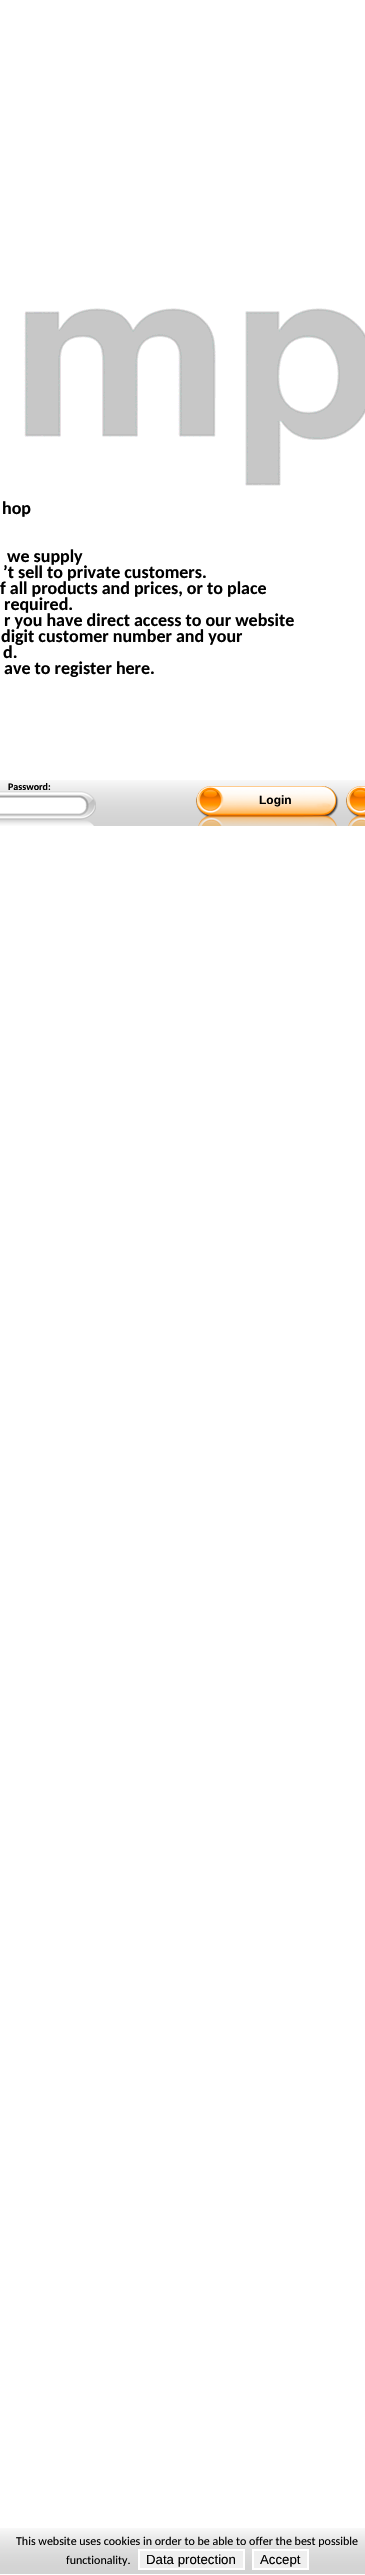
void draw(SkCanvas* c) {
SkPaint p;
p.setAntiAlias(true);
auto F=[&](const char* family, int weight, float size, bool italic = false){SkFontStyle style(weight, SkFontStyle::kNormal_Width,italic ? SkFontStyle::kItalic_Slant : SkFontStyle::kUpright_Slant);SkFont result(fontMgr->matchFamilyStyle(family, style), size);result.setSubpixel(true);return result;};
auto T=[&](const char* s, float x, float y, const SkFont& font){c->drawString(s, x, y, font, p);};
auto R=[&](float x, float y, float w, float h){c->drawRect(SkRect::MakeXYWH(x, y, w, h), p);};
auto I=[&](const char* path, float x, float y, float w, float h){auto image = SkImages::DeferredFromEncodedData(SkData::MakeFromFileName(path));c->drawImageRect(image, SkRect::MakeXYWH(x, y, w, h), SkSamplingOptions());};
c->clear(0xffffffff);
I("1.png",24,308,341,178);
auto f1 = F("Carlito",700,18);
p.setColor(0xff000000);
T("hop",2,514,f1);
T("we supply",7,562,f1);
T("’t sell to private customers.",3,578,f1);
T("f all products and prices, or to place",0,594,f1);
T("required.",4,610,f1);
T("r you have direct access to our website",4,626,f1);
T("digit customer number and your",1,642,f1);
T("d.",3,658,f1);
T("ave to register here.",4,674,f1);
I("2.png",0,780,365,46);
auto f2 = F("Carlito",700,10);
T("Password:",8,790,f2);
p.setColor(0xffffffff);
R(0,797,87,17);
I("3.png",0,791,96,35);
I("4.png",196,786,143,40);
auto f3 = F("Liberation Sans",700,12);
p.setColor(0xff000000);
T("Login",259,804,f3);
I("5.png",346,786,19,40);
I("2.png",0,2528,365,46);
auto f4 = F("Carlito",400,12);
T("This website uses cookies in order to be able to offer the best possible",16,2545,f4);
T("functionality.",66,2564,f4);
p.setColor(0xffefefef);
c->drawRect(SkRect::MakeXYWH(139,2550,105,19),p);
p.setStroke(true);
p.setStrokeWidth(2);
p.setColor(0xffffffff);
c->drawRect(SkRect::MakeXYWH(139,2550,105,19),p);
auto f5 = F("Liberation Sans",400,13.25);
p.setStroke(false);
p.setColor(0xff000000);
T("Data protection",146,2564,f5);
p.setColor(0xffefefef);
c->drawRect(SkRect::MakeXYWH(253,2550,55,19),p);
p.setStroke(true);
p.setColor(0xffffffff);
c->drawRect(SkRect::MakeXYWH(253,2550,55,19),p);
p.setStroke(false);
p.setColor(0xff000000);
T("Accept",260,2564,f5);
}
